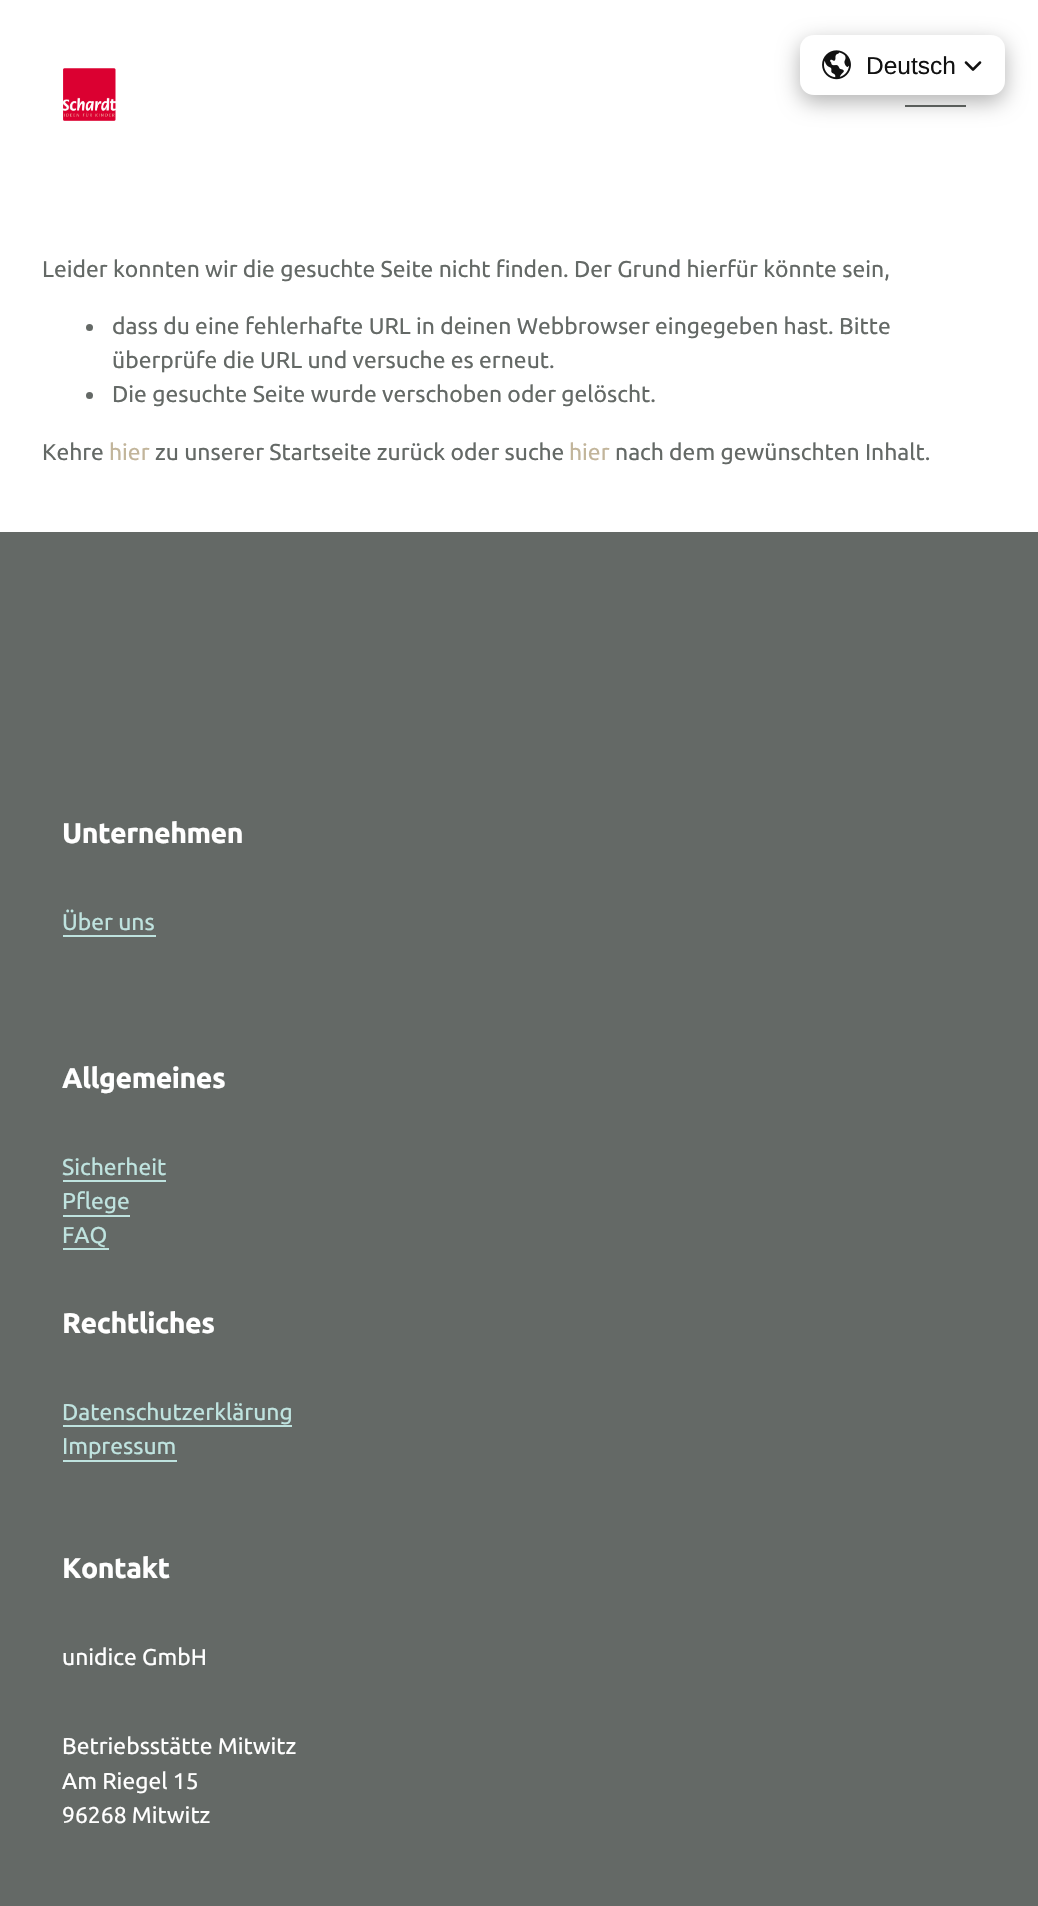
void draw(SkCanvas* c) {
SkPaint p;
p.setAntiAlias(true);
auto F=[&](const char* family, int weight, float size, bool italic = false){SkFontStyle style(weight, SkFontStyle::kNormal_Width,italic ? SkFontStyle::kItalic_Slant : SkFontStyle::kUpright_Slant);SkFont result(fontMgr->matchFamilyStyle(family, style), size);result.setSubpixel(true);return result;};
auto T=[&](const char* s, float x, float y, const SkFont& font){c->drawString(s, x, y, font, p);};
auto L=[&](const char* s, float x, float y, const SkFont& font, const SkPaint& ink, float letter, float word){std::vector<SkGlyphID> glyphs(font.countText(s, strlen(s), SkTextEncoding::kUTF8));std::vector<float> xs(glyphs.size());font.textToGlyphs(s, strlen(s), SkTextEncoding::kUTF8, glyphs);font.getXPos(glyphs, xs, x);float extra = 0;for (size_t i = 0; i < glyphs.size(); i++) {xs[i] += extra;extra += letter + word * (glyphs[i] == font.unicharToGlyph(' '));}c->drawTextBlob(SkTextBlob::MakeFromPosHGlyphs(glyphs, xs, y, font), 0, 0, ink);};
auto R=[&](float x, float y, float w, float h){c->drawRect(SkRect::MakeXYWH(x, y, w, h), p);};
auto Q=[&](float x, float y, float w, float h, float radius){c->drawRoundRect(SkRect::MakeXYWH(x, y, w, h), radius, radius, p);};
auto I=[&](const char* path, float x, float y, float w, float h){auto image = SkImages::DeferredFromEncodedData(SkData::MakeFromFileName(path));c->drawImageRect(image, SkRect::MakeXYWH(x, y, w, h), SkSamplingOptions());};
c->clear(0xffffffff);
p.setColor(0xff646966);
R(905,105,61,2);
p.setColor(0x4d000000);
p.setMaskFilter(SkMaskFilter::MakeBlur(kNormal_SkBlurStyle, 10.5));
c->drawRoundRect(SkRect::MakeXYWH(800,42,205,60),14,14,p);
p.setMaskFilter(nullptr);
p.setColor(0xffffffff);
Q(800,35,205,60,14);
I("1.png",822,50,29,30);
auto f1 = F("Liberation Sans",400,24.5);
p.setColor(0xff111111);
T("Deutsch",866,74,f1);
I("2.png",964,61,18,10);
I("3.png",63,68,53,53);
auto f2 = F("Ubuntu",400,22.9);
p.setColor(0xff646966);
T("Leider konnten wir die gesuchte Seite nicht finden. Der Grund hierfür könnte sein,",42,277,f2);
c->drawCircle(89.5,327.5,3.5,p);
T("dass du eine fehlerhafte URL in deinen Webbrowser eingegeben hast. Bitte",112,334,f2);
T("überprüfe die URL und versuche es erneut.",112,368,f2);
c->drawCircle(89.5,395.5,3.5,p);
T("Die gesuchte Seite wurde verschoben oder gelöscht.",112,402,f2);
T("Kehre",42,460,f2);
p.setColor(0xffc2b59b);
T("hier",109,460,f2);
p.setColor(0xff646966);
T("zu unserer Startseite zurück oder suche",155,460,f2);
p.setColor(0xffc2b59b);
T("hier",569,460,f2);
p.setColor(0xff646966);
T("nach dem gewünschten Inhalt.",615,460,f2);
R(0,532,1038,1374);
auto f3 = F("Ubuntu",700,28.5);
p.setColor(0xffffffff);
L("Unternehmen",62,843,f3,p,-.5,0);
p.setColor(0xffbfe3df);
T("Über uns",62,930,f2);
R(63,935,93,2);
p.setColor(0xffffffff);
L("Allgemeines",62,1088,f3,p,-.5,0);
p.setColor(0xffbfe3df);
T("Sicherheit",62,1175,f2);
R(63,1180,103,2);
T("Pflege",62,1209,f2);
R(63,1215,67,2);
T("FAQ",62,1243,f2);
R(63,1248,46,2);
p.setColor(0xffffffff);
L("Rechtliches",62,1333,f3,p,-.5,0);
p.setColor(0xffbfe3df);
T("Datenschutzerklärung",62,1420,f2);
R(63,1425,229,2);
T("Impressum",62,1454,f2);
R(63,1460,114,2);
p.setColor(0xffffffff);
L("Kontakt",62,1578,f3,p,-.5,0);
T("unidice GmbH",62,1665,f2);
T("Betriebsstätte Mitwitz",62,1754,f2);
T("Am Riegel 15",62,1789,f2);
T("96268 Mitwitz",62,1823,f2);
}
